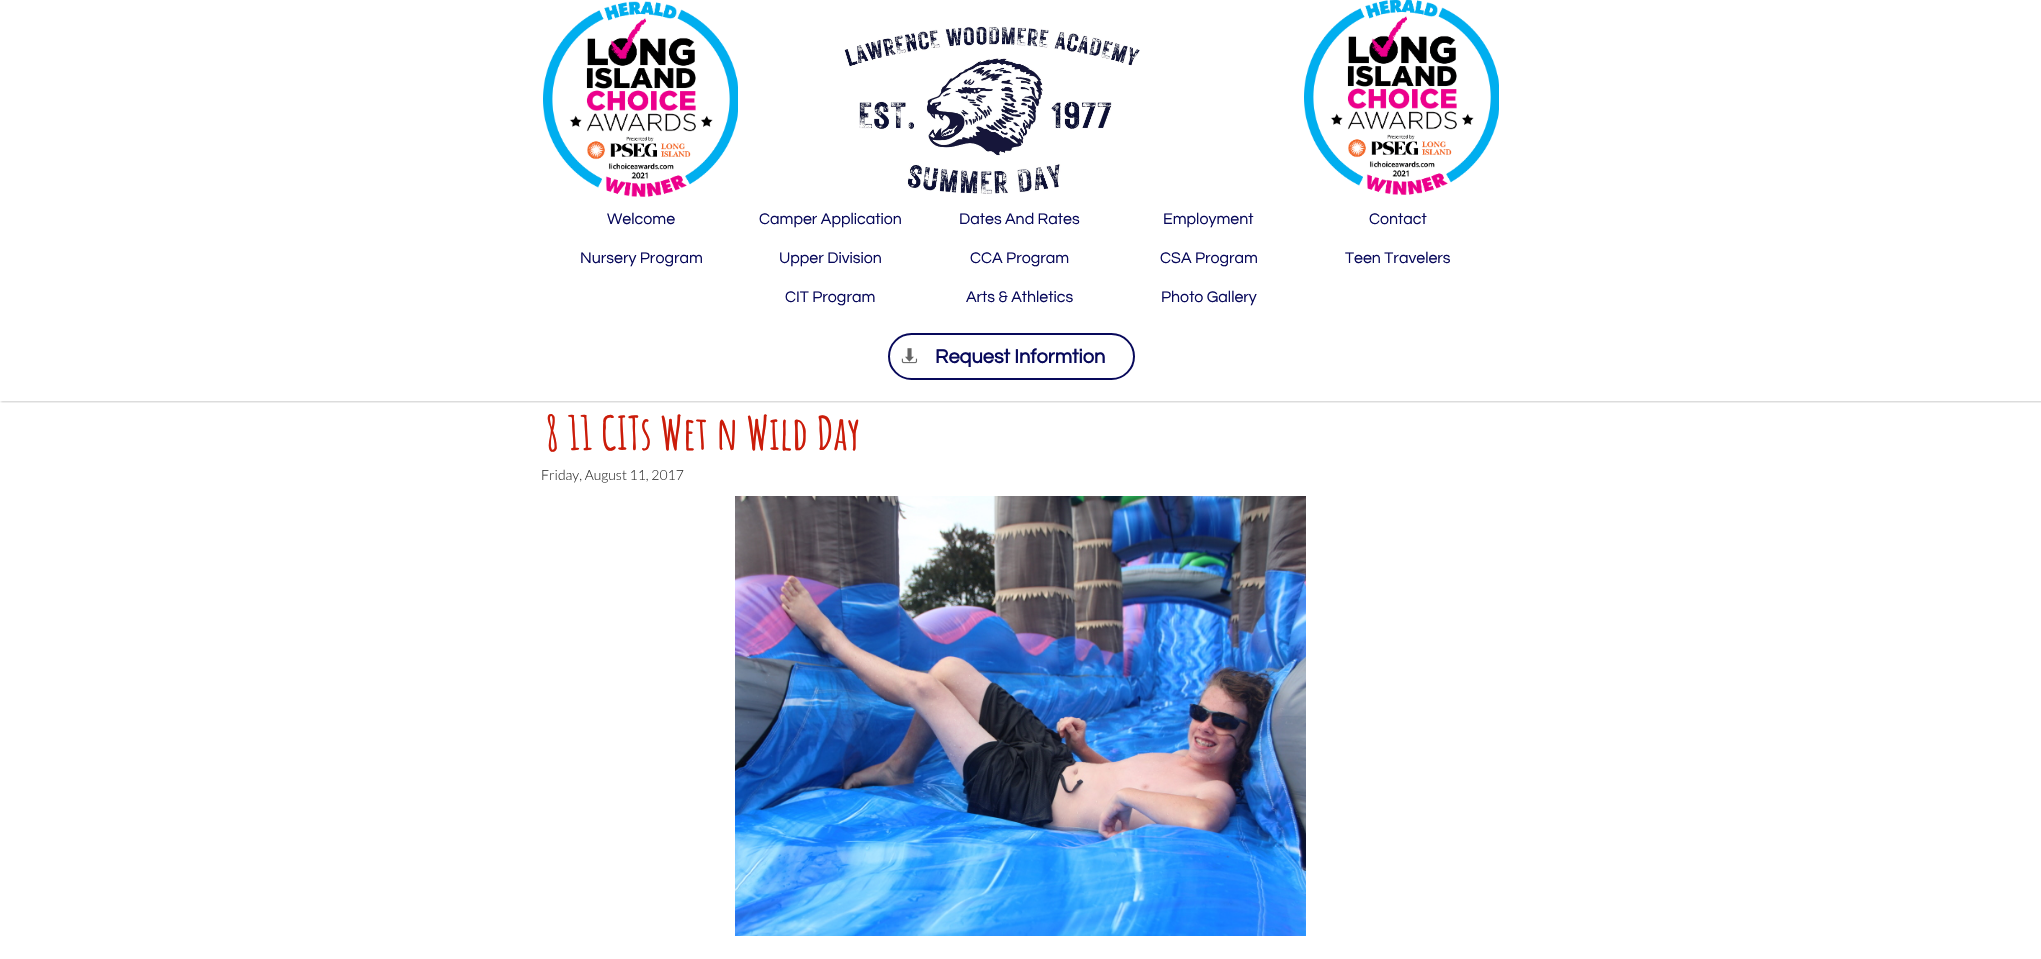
void draw(SkCanvas* c) {
SkPaint p;
p.setAntiAlias(true);
auto F=[&](const char* family, int weight, float size, bool italic = false){SkFontStyle style(weight, SkFontStyle::kNormal_Width,italic ? SkFontStyle::kItalic_Slant : SkFontStyle::kUpright_Slant);SkFont result(fontMgr->matchFamilyStyle(family, style), size);result.setSubpixel(true);return result;};
auto T=[&](const char* s, float x, float y, const SkFont& font){c->drawString(s, x, y, font, p);};
auto I=[&](const char* path, float x, float y, float w, float h){auto image = SkImages::DeferredFromEncodedData(SkData::MakeFromFileName(path));c->drawImageRect(image, SkRect::MakeXYWH(x, y, w, h), SkSamplingOptions());};
c->clear(0xffffffff);
c->save();
c->clipRect(SkRect::MakeXYWH(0,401,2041,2));
p.setColor(0x33000000);
p.setMaskFilter(SkMaskFilter::MakeBlur(kNormal_SkBlurStyle, 1));
c->drawRect(SkRect::MakeXYWH(1,1,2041,401),p);
p.setMaskFilter(nullptr);
c->restore();
I("1.png",543,1,195,196);
I("2.png",844,26,296,168);
I("3.png",1304,0,195,195);
auto f1 = F("Questrial",400,16);
p.setColor(0xff08095b);
T("Welcome",607,224,f1);
T("Camper Application",759,224,f1);
T("Dates And Rates",959,224,f1);
T("Employment",1163,224,f1);
T("Contact",1369,224,f1);
T("Nursery Program",580,263,f1);
T("Upper Division",779,263,f1);
T("CCA Program",970,263,f1);
T("CSA Program",1160,263,f1);
T("Teen Travelers",1345,263,f1);
T("CIT Program",785,302,f1);
T("Arts & Athletics",966,302,f1);
T("Photo Gallery",1161,302,f1);
p.setStroke(true);
p.setStrokeWidth(2);
c->drawRoundRect(SkRect::MakeXYWH(889,334,245,45),22.5,22.5,p);
I("4.png",901,348,17,16);
auto f2 = F("Questrial",700,20);
p.setStroke(false);
T("Request Informtion",935,363,f2);
auto f3 = F("Amatic SC",700,46);
p.setColor(0xffcb1c0a);
T("8 11 CITs Wet n Wild Day",545,450,f3);
auto f4 = F("Lato",300,14);
p.setColor(0xff333333);
T("Friday, August 11, 2017",541,480,f4);
I("5.png",735,496,571,440);
}
